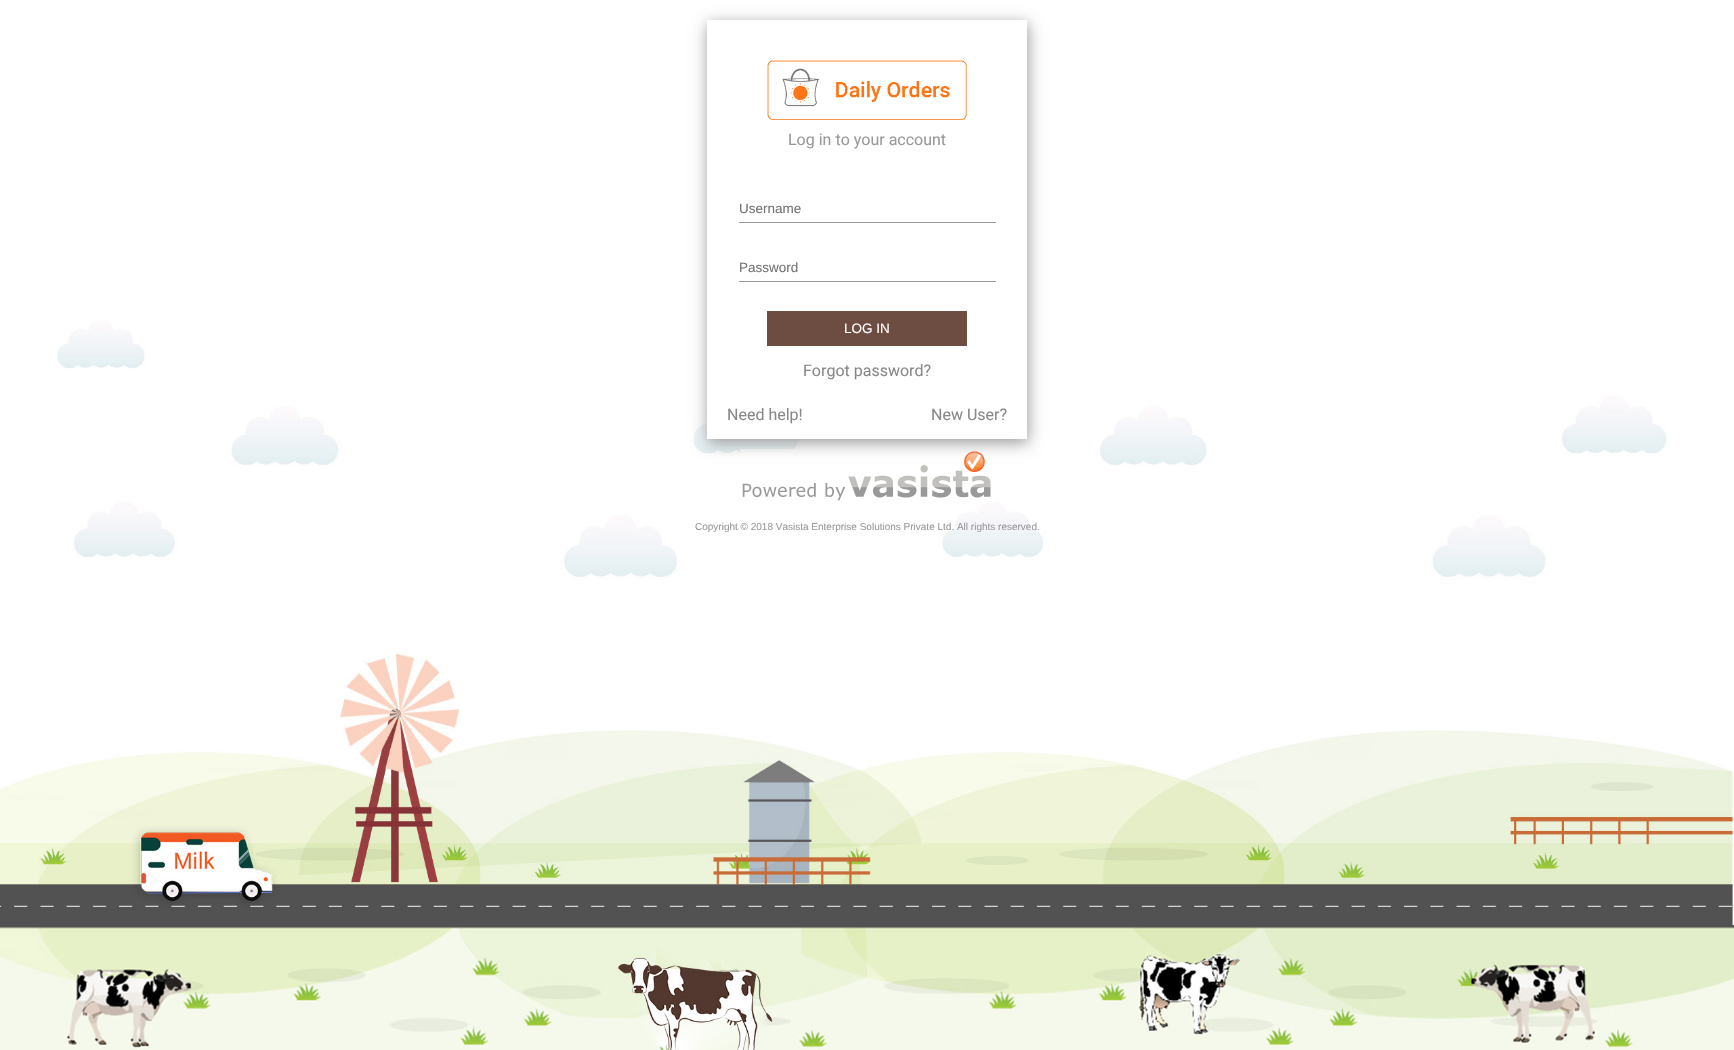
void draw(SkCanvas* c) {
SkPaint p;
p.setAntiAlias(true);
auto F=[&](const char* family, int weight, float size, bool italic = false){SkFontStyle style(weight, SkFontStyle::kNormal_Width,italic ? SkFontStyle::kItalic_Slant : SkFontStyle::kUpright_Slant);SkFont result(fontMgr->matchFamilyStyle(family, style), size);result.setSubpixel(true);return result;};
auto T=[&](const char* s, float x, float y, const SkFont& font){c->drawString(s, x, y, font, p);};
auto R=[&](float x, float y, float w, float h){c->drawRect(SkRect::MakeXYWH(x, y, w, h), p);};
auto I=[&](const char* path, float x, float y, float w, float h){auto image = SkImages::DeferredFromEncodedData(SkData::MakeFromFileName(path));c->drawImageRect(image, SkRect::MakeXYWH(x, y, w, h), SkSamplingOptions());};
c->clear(0xffffffff);
I("1.png",0,320,1734,730);
I("3.png",740,449,255,54);
p.setColor(0xff999999);
p.setMaskFilter(SkMaskFilter::MakeBlur(kNormal_SkBlurStyle, 7.5));
c->drawRect(SkRect::MakeXYWH(708,24,320,419),p);
p.setMaskFilter(nullptr);
p.setColor(0xffffffff);
R(707,20,320,419);
I("2.png",767,60,200,60);
auto f1 = F("Roboto",400,16);
p.setColor(0xff999999);
T("Log in to your account",788,145,f1);
R(739,222,257,1);
auto f2 = F("Liberation Sans",400,13.5);
p.setColor(0xff757575);
T("Username",739,213,f2);
p.setColor(0xff999999);
R(739,281,257,1);
p.setColor(0xff757575);
T("Password",739,272,f2);
p.setColor(0xff6d4c41);
R(767,311,200,35);
p.setColor(0xffffffff);
T("LOG IN",844,333,f2);
p.setColor(0xff888888);
T("Forgot password?",803,376,f1);
T("Need help!",727,420,f1);
T("New User?",931,420,f1);
auto f3 = F("Liberation Sans",400,10);
p.setColor(0xff999999);
T("Copyright © 2018 Vasista Enterprise Solutions Private Ltd. All rights reserved.",695,530,f3);
}
